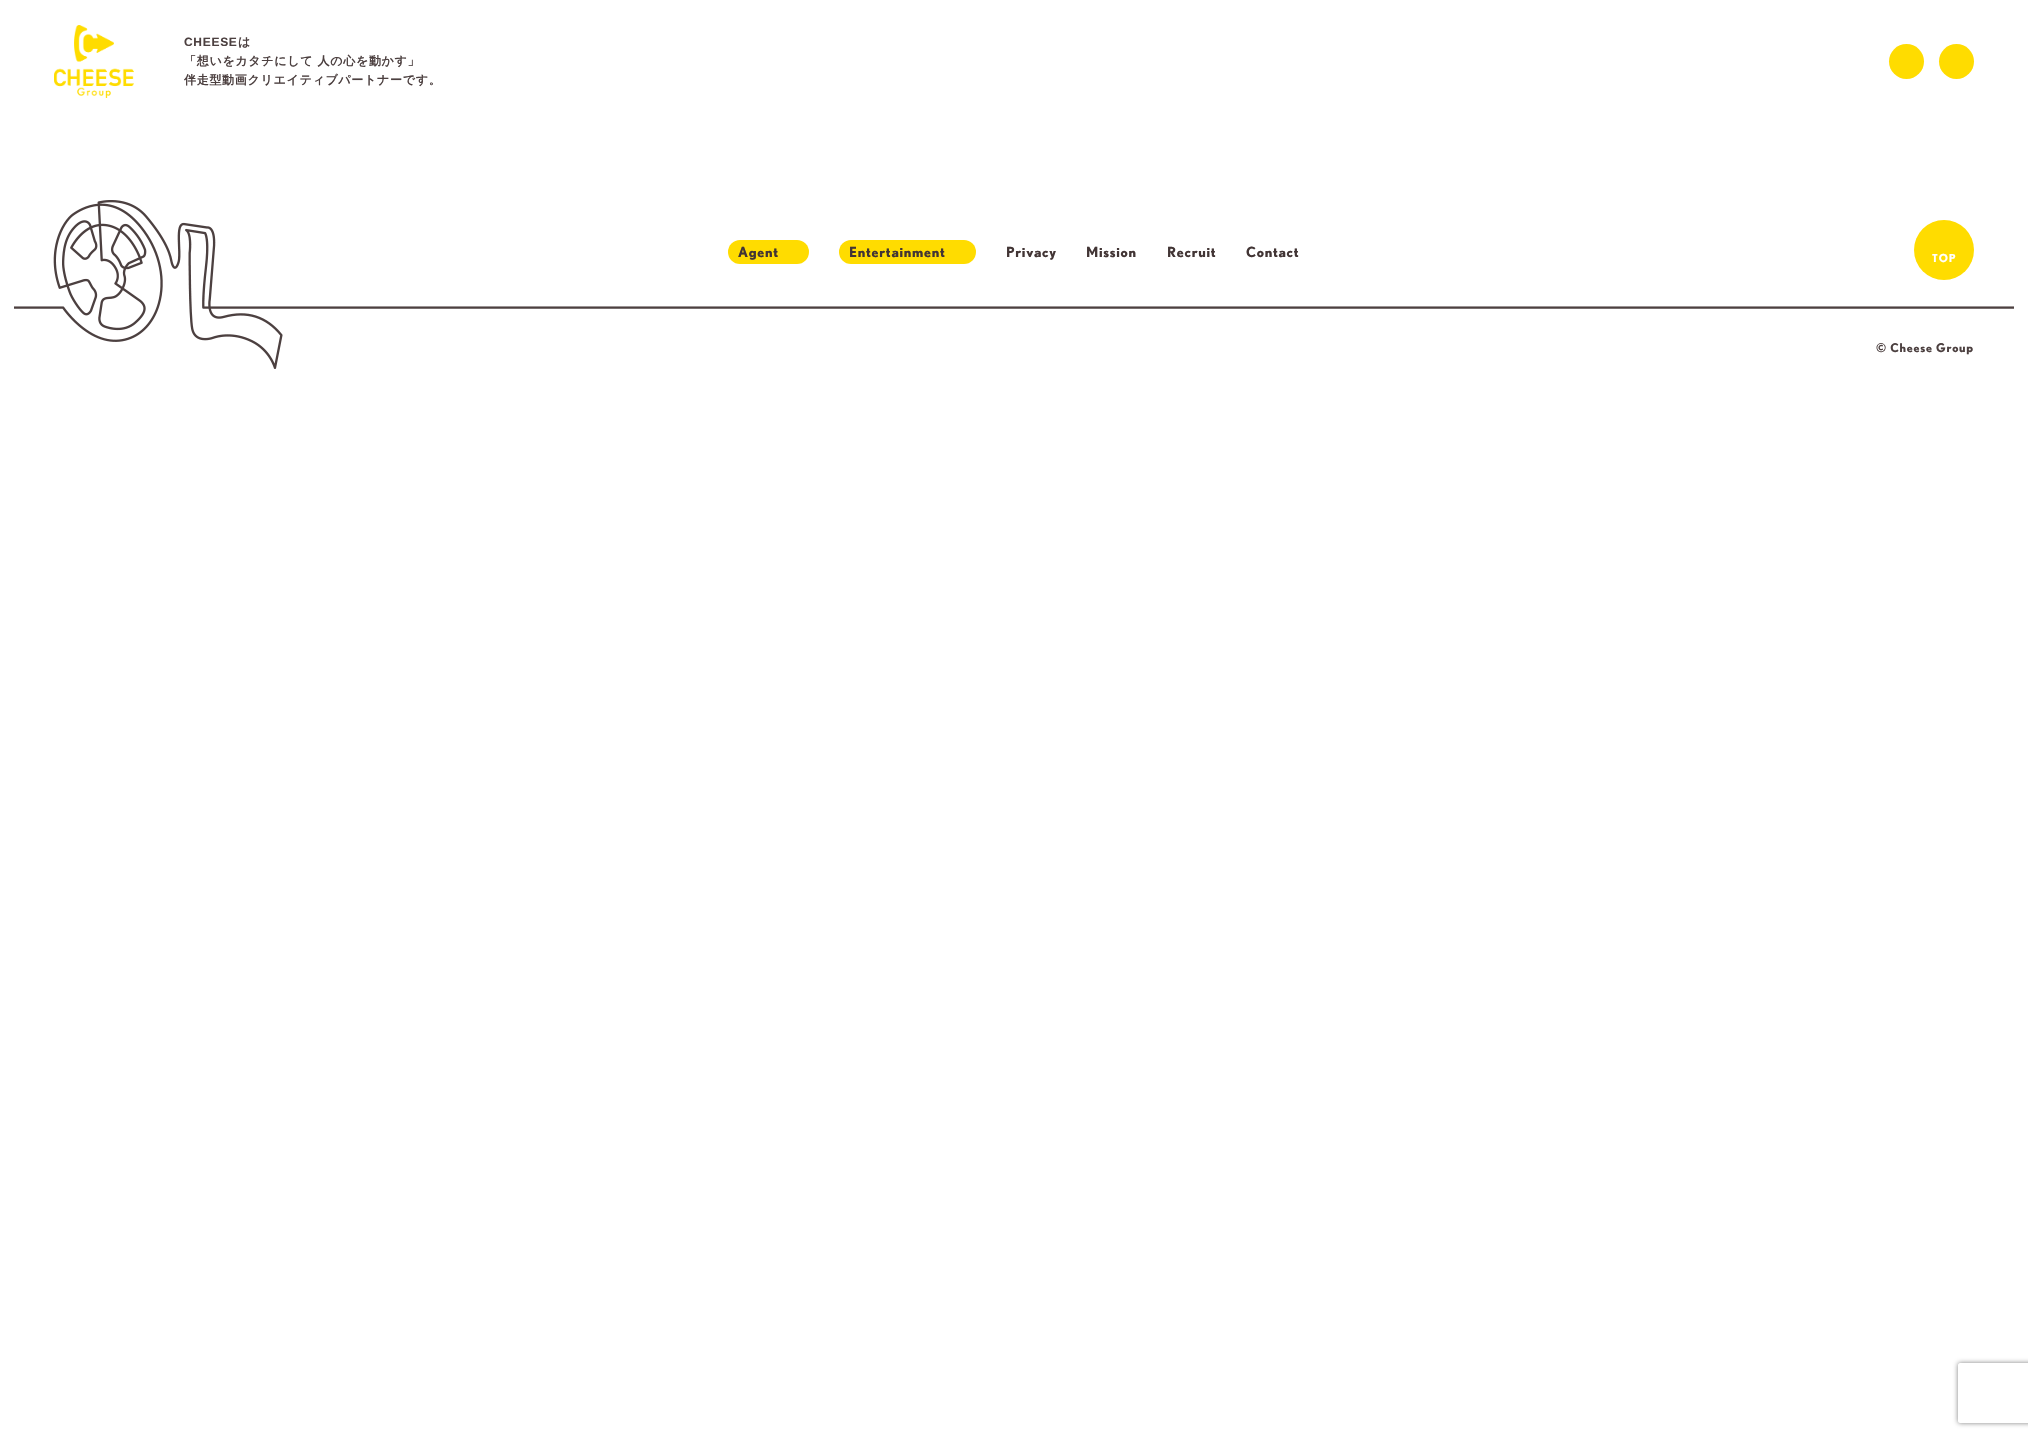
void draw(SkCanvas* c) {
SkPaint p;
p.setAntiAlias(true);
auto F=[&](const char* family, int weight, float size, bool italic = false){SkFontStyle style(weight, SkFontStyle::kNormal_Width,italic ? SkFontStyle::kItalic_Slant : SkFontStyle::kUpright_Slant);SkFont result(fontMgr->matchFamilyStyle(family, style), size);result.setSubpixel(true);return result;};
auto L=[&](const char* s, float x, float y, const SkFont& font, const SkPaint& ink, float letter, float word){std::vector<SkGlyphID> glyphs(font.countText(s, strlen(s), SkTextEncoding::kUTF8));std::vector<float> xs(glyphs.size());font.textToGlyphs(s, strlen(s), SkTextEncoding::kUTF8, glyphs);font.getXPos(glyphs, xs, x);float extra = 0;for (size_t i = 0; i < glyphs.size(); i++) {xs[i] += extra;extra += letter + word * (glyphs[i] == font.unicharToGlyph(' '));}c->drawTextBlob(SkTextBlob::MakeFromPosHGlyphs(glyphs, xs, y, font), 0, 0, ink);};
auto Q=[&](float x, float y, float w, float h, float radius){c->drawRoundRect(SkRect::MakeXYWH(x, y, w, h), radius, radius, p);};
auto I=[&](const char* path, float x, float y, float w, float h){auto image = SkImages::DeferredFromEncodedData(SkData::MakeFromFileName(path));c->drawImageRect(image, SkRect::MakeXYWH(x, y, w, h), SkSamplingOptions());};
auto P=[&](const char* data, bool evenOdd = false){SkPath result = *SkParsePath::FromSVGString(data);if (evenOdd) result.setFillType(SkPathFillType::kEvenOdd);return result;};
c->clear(0xffffffff);
I("1.png",54,25,80,73);
auto f1 = F("Liberation Sans",700,12);
p.setColor(0xff4c4040);
L("CHEESE",184,46,f1,p,.7,0);
auto f2 = F("WenQuanYi Zen Hei",700,12);
L("は",238,46,f2,p,.7,0);
L("「想いをカタチにして 人の心を動かす」",184,65,f2,p,.7,0);
L("伴走型動画クリエイティブパートナーです。",184,84,f2,p,.7,0);
p.setColor(0xffffdc00);
c->drawCircle(1906.5,61.5,17.5,p);
c->drawCircle(1956.5,61.5,17.5,p);
I("2.png",14,200,2000,169);
Q(728,240,81,24,12);
auto f3 = F("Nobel",700,14);
p.setColor(0xff423535);
L("Agent",738,257,f3,p,.7,0);
p.setColor(0xffffdc00);
Q(839,240,137,24,12);
p.setColor(0xff423535);
L("Entertainment",849,257,f3,p,.7,0);
L("Privacy",1006,257,f3,p,.7,0);
L("Mission",1086,257,f3,p,.7,0);
L("Recruit",1167,257,f3,p,.7,0);
L("Contact",1246,257,f3,p,.7,0);
p.setColor(0xffffdc00);
c->drawCircle(1944,250,30,p);
auto f4 = F("Nobel",700,11);
p.setColor(0xffffffff);
L("TOP",1932,262,f4,p,1,0);
auto f5 = F("Nobel",700,12);
p.setColor(0xff4c4040);
L("© Cheese Group",1876,352,f5,p,.7,0);
c->save();
c->clipPath(P("M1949 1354h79v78h-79zm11 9h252c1 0 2 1 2 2v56c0 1-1 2-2 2h-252c-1 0-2-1-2-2v-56c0-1 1-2 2-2z",true),true);
p.setColor(0xff808080);
p.setMaskFilter(SkMaskFilter::MakeBlur(kNormal_SkBlurStyle, 2.5));
c->drawRoundRect(SkRect::MakeXYWH(1958,1363,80,60),2,2,p);
p.setMaskFilter(nullptr);
c->restore();
}
